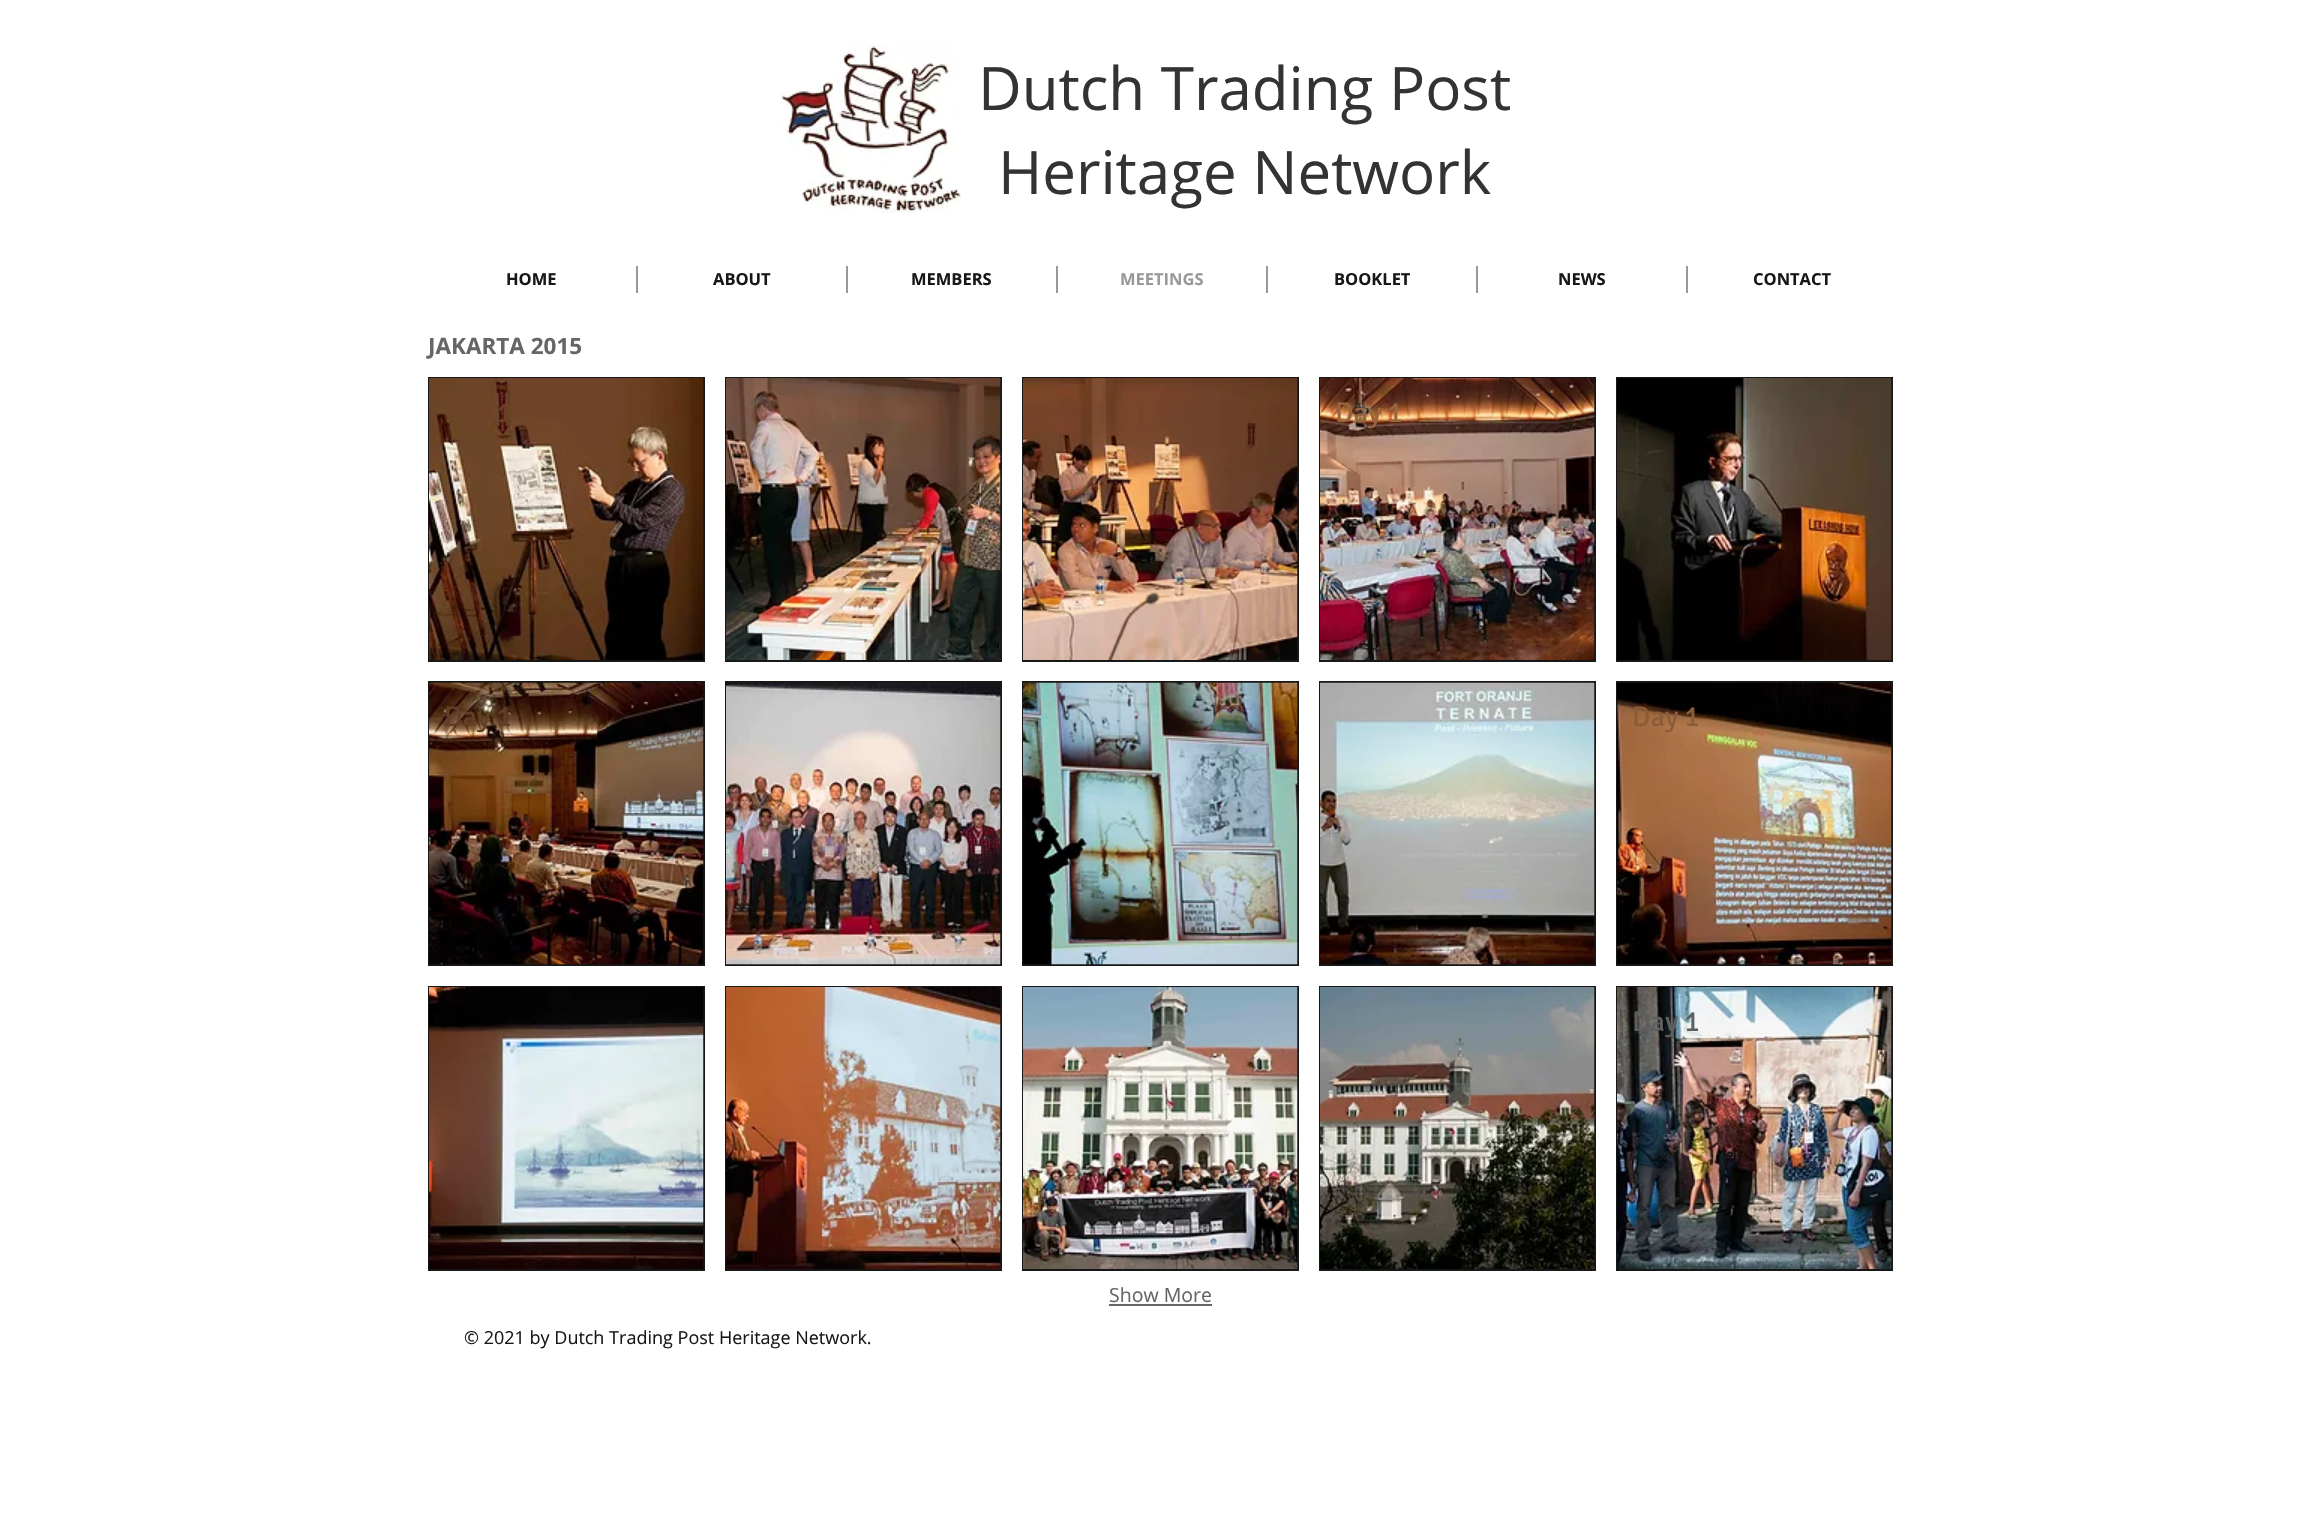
void draw(SkCanvas* c) {
SkPaint p;
p.setAntiAlias(true);
auto F=[&](const char* family, int weight, float size, bool italic = false){SkFontStyle style(weight, SkFontStyle::kNormal_Width,italic ? SkFontStyle::kItalic_Slant : SkFontStyle::kUpright_Slant);SkFont result(fontMgr->matchFamilyStyle(family, style), size);result.setSubpixel(true);return result;};
auto T=[&](const char* s, float x, float y, const SkFont& font){c->drawString(s, x, y, font, p);};
auto R=[&](float x, float y, float w, float h){c->drawRect(SkRect::MakeXYWH(x, y, w, h), p);};
auto I=[&](const char* path, float x, float y, float w, float h){auto image = SkImages::DeferredFromEncodedData(SkData::MakeFromFileName(path));c->drawImageRect(image, SkRect::MakeXYWH(x, y, w, h), SkSamplingOptions());};
c->clear(0xffffffff);
I("1.png",780,45,181,168);
auto f1 = F("Open Sans",400,60);
p.setColor(0xff333333);
T("Dutch Trading Post",978,110,f1);
T("Heritage Network",998,194,f1);
auto f2 = F("Open Sans",700,16.5);
p.setColor(0xff181717);
T("HOME",506,285,f2);
p.setColor(0xff999999);
R(636,266,2,27);
p.setColor(0xff181717);
T("ABOUT",713,285,f2);
p.setColor(0xff999999);
R(846,266,2,27);
p.setColor(0xff181717);
T("MEMBERS",911,285,f2);
p.setColor(0xff999999);
R(1056,266,2,27);
T("MEETINGS",1120,285,f2);
R(1266,266,2,27);
p.setColor(0xff181717);
T("BOOKLET",1334,285,f2);
p.setColor(0xff999999);
R(1476,266,2,27);
p.setColor(0xff181717);
T("NEWS",1558,285,f2);
p.setColor(0xff999999);
R(1686,266,2,27);
p.setColor(0xff181717);
T("CONTACT",1753,285,f2);
auto f3 = F("Open Sans",700,22.5);
p.setColor(0xff666666);
T("JAKARTA 2015",428,354,f3);
p.setColor(0xff181717);
R(428,377,277,285);
I("2.png",429,378,275,282);
auto f4 = F("Signika",400,28.5);
p.setColor(0xff683e24);
T("1",497,422,f4);
p.setColor(0xff181717);
R(725,377,277,285);
I("3.png",726,378,275,282);
R(1022,377,277,285);
I("4.png",1023,378,275,282);
R(1319,377,277,285);
I("5.png",1320,378,275,282);
p.setColor(0xff99653f);
T("Day 1",1335,422,f4);
p.setColor(0xff181717);
R(1616,377,277,285);
I("6.png",1617,378,275,282);
R(428,681,277,285);
I("7.png",429,682,275,283);
p.setColor(0xff613f27);
T("Day 1",444,726,f4);
p.setColor(0xff181717);
R(725,681,277,285);
I("8.png",726,682,275,283);
R(1022,681,277,285);
I("9.png",1023,682,275,283);
R(1319,681,277,285);
I("10.png",1320,682,275,283);
R(1616,681,277,285);
I("11.png",1617,682,275,283);
p.setColor(0xff8c5c39);
T("Day 1",1632,726,f4);
p.setColor(0xff181717);
R(428,986,277,285);
I("12.png",429,987,275,282);
R(725,986,277,285);
I("13.png",726,987,275,282);
R(1022,986,277,285);
I("14.png",1023,987,275,282);
R(1319,986,277,285);
I("15.png",1320,987,275,282);
R(1616,986,277,285);
I("16.png",1617,987,275,282);
p.setColor(0xff5c5e5f);
T("Day 1",1632,1031,f4);
auto f5 = F("Open Sans",400,19.5);
p.setColor(0xff666666);
T("Show More",1109,1302,f5);
R(1109,1304,103,2);
auto f6 = F("Open Sans",400,18);
p.setColor(0xff181717);
T("© 2021 by Dutch Trading Post Heritage Network.",464,1344,f6);
}
